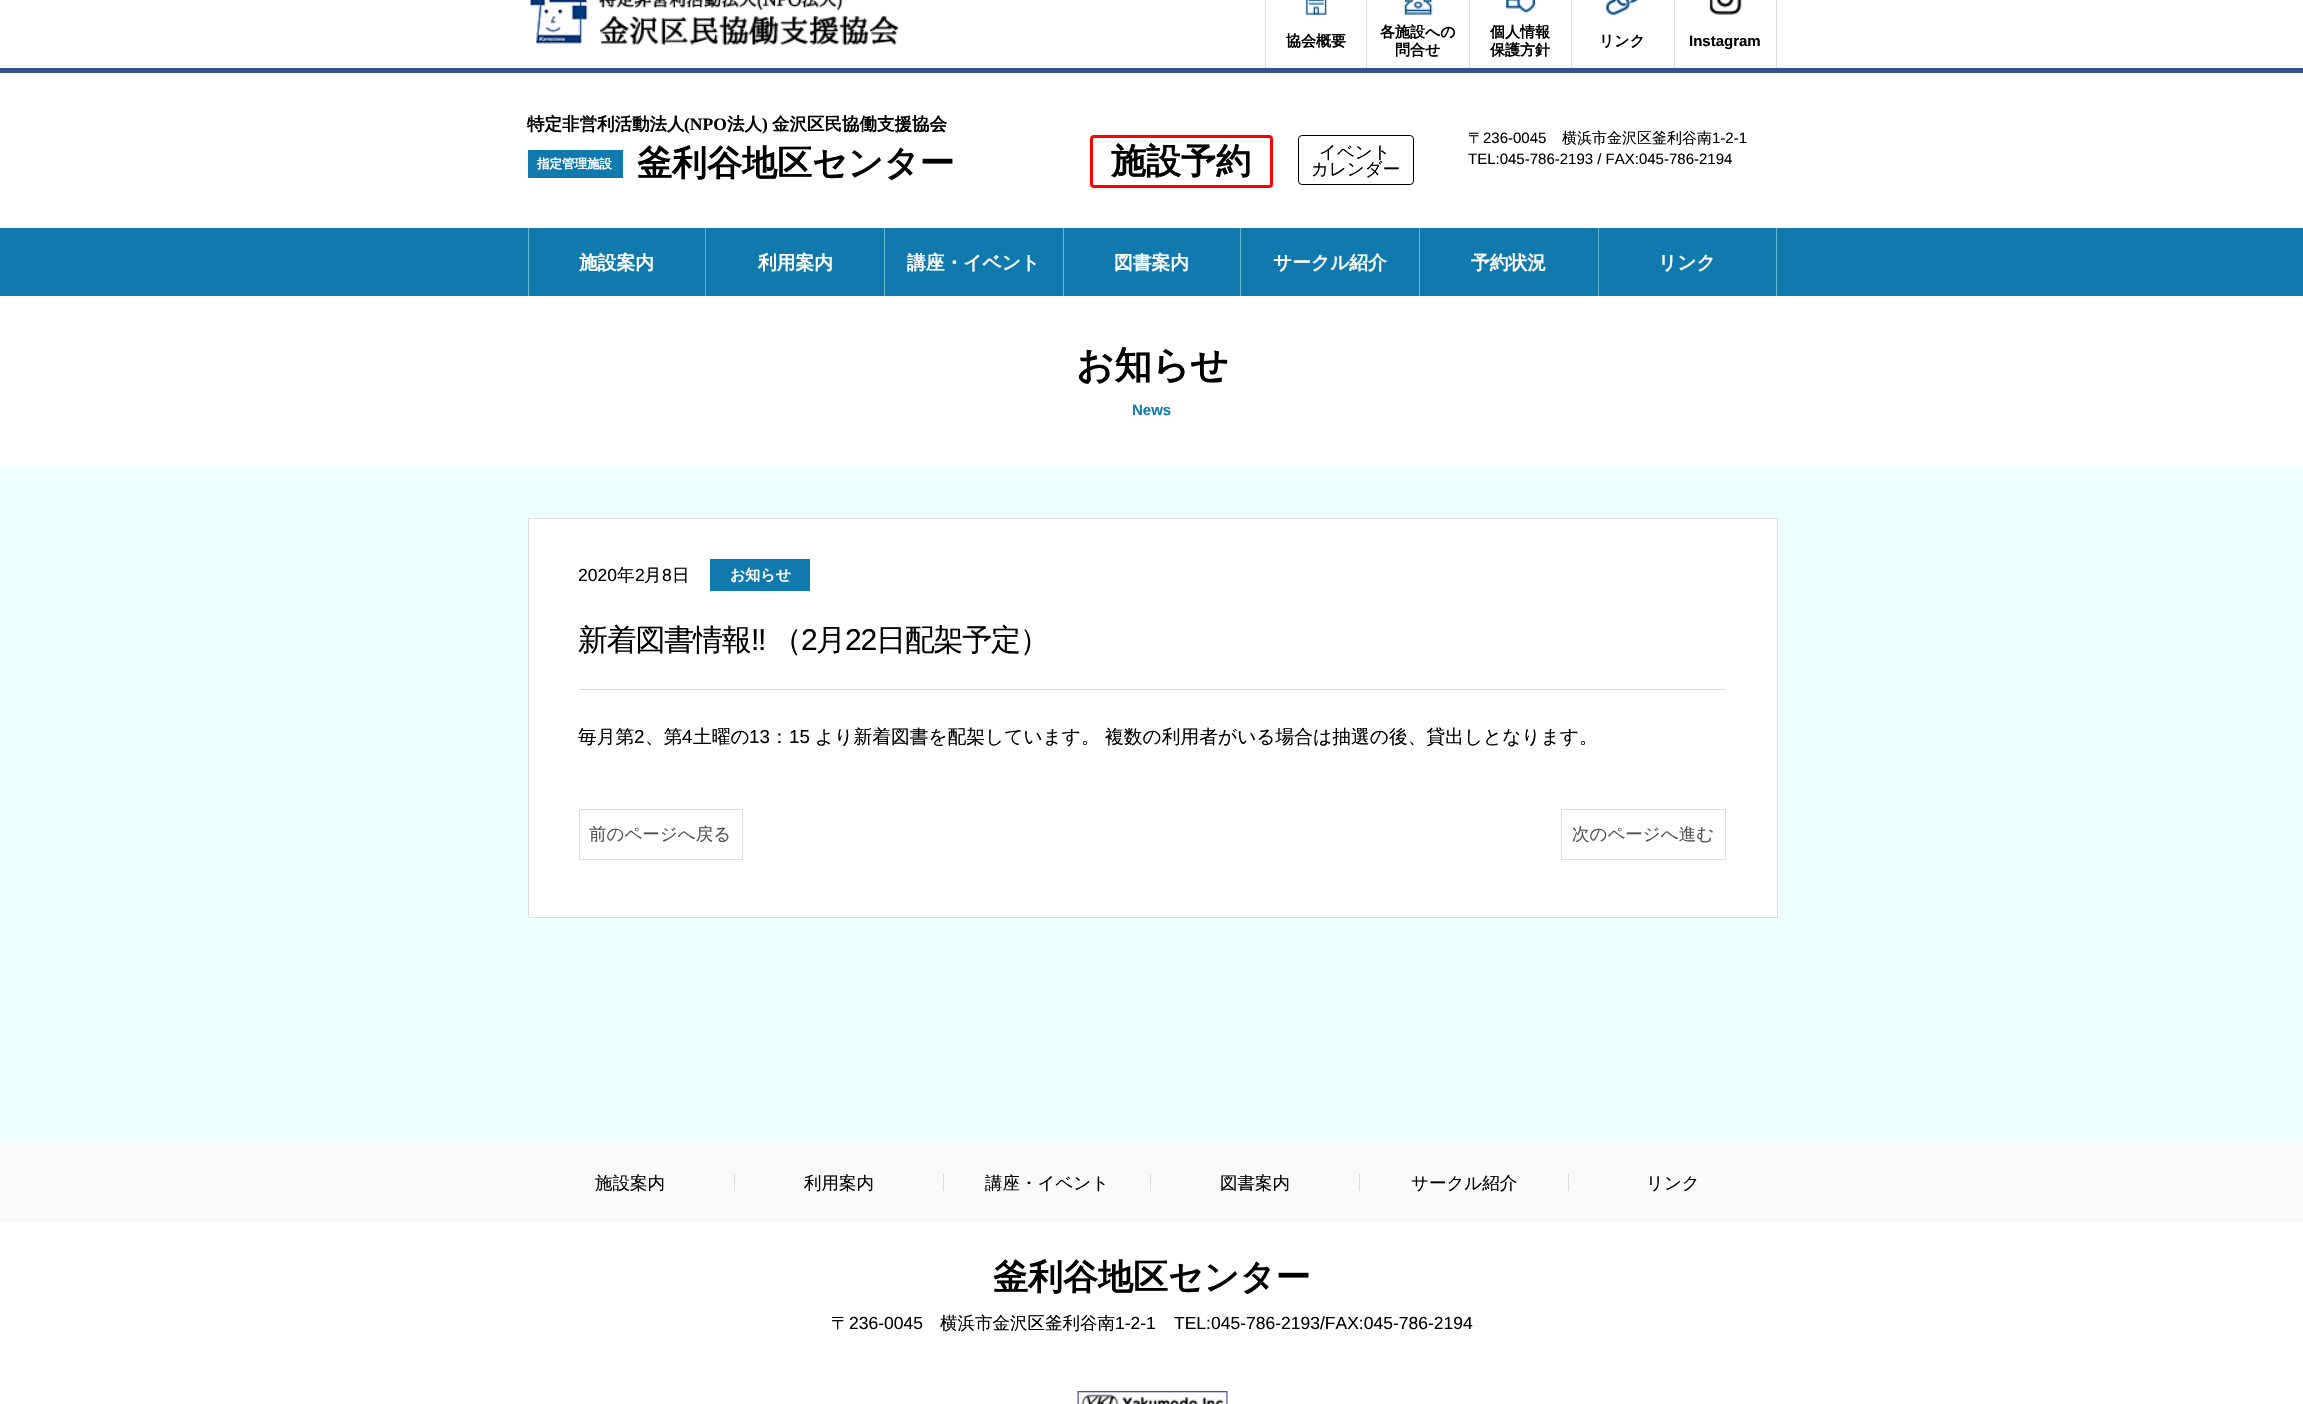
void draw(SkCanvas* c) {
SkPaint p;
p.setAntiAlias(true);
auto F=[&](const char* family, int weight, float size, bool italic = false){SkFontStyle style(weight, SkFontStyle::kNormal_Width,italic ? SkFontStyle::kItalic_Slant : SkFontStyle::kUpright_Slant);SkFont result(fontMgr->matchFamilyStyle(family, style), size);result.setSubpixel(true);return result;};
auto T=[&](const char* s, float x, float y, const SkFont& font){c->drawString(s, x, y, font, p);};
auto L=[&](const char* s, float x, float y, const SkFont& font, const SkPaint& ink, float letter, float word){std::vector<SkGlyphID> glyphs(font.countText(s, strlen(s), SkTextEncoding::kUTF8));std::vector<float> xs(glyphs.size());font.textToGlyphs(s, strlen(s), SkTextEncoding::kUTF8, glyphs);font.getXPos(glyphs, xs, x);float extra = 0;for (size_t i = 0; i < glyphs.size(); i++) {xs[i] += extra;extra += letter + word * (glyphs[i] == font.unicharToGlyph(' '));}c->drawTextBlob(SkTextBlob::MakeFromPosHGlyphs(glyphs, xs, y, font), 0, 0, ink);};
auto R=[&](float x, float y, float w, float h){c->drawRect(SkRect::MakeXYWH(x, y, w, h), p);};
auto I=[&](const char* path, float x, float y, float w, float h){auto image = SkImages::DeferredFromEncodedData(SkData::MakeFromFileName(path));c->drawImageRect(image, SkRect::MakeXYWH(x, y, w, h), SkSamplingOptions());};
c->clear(0xffffffff);
p.setColor(0xff34518b);
R(0,68,2303,5);
I("1.png",529,0,370,45);
p.setColor(0xffdddddd);
R(1366,0,1,68);
R(1265,0,1,68);
I("2.png",1305,0,22,15);
auto f1 = F("WenQuanYi Zen Hei",700,15);
p.setColor(0xff000000);
T("協会概要",1286,46,f1);
p.setColor(0xffdddddd);
R(1469,0,1,68);
I("3.png",1403,0,30,15);
p.setColor(0xff000000);
T("各施設への",1380,37,f1);
T("問合せ",1395,55,f1);
p.setColor(0xffdddddd);
R(1571,0,1,68);
I("4.png",1506,0,29,13);
p.setColor(0xff000000);
T("個人情報",1490,37,f1);
T("保護方針",1490,55,f1);
p.setColor(0xffdddddd);
R(1674,0,1,68);
I("5.png",1606,0,32,15);
p.setColor(0xff000000);
T("リンク",1599,46,f1);
p.setColor(0xffdddddd);
R(1776,0,1,68);
I("6.png",1709,0,33,15);
auto f2 = F("Liberation Sans",700,15);
p.setColor(0xff000000);
T("Instagram",1689,46,f2);
auto f3 = F("WenQuanYi Zen Hei",700,17.5);
T("特定非営利活動法人",527,130,f3);
auto f4 = F("Liberation Serif",700,17.5);
T("(NPO",684,130,f4);
T("法人",727,130,f3);
T(")",762,130,f4);
T("金沢区民協働支援協会",772,130,f3);
p.setColor(0xff107aaf);
R(528,150,95,28);
auto f5 = F("WenQuanYi Zen Hei",700,12.5);
p.setColor(0xffffffff);
T("指定管理施設",537,168,f5);
auto f6 = F("WenQuanYi Zen Hei",700,35);
p.setColor(0xff000000);
T("釜利谷地区センター",637,175,f6);
p.setStroke(true);
p.setStrokeWidth(3);
p.setColor(0xffff0000);
c->drawRoundRect(SkRect::MakeXYWH(1091.5,136.5,180,50),2.5,2.5,p);
p.setStroke(false);
p.setColor(0xff000000);
T("施設予約",1111,173,f6);
p.setStroke(true);
p.setStrokeWidth(1);
c->drawRoundRect(SkRect::MakeXYWH(1298.5,135.5,115,49),3.5,3.5,p);
auto f7 = F("WenQuanYi Zen Hei",500,17.5);
p.setStroke(false);
T("イベント",1319,158,f7);
T("カレンダー",1311,175,f7);
auto f8 = F("WenQuanYi Zen Hei",500,15);
T("〒",1468,143,f8);
auto f9 = F("Liberation Sans",400,15);
T("236-0045",1483,143,f9);
T("横浜市金沢区釜利谷南",1562,143,f8);
T("1-2-1",1712,143,f9);
T("TEL:045-786-2193 / FAX:045-786-2194",1468,164,f9);
p.setColor(0xff107aaf);
R(0,228,2303,68);
p.setColor(0xff65b8cc);
R(705,228,1,68);
R(528,228,1,68);
auto f10 = F("WenQuanYi Zen Hei",700,18.75);
p.setColor(0xffffffff);
T("施設案内",579,269,f10);
p.setColor(0xff65b8cc);
R(884,228,1,68);
p.setColor(0xffffffff);
T("利用案内",758,269,f10);
p.setColor(0xff65b8cc);
R(1063,228,1,68);
p.setColor(0xffffffff);
T("講座・イベント",907,269,f10);
p.setColor(0xff65b8cc);
R(1240,228,1,68);
p.setColor(0xffffffff);
T("図書案内",1114,269,f10);
p.setColor(0xff65b8cc);
R(1419,228,1,68);
p.setColor(0xffffffff);
T("サークル紹介",1273,269,f10);
p.setColor(0xff65b8cc);
R(1598,228,1,68);
p.setColor(0xffffffff);
T("予約状況",1471,269,f10);
p.setColor(0xff65b8cc);
R(1776,228,1,68);
p.setColor(0xffffffff);
T("リンク",1658,269,f10);
auto f11 = F("WenQuanYi Zen Hei",700,37.5);
p.setColor(0xff000000);
T("お知らせ",1076,378,f11);
p.setColor(0xff107aaf);
T("News",1132,415,f2);
p.setColor(0xffedffff);
R(0,468,2303,675);
p.setColor(0xffffffff);
c->drawRect(SkRect::MakeXYWH(528.5,518.5,1249,399),p);
p.setStroke(true);
p.setColor(0xffdddddd);
c->drawRect(SkRect::MakeXYWH(528.5,518.5,1249,399),p);
auto f12 = F("Liberation Sans",400,17.5);
p.setStroke(false);
p.setColor(0xff000000);
T("2020",578,581,f12);
T("年",617,581,f7);
T("2",635,581,f12);
T("月",644,581,f7);
T("8",662,581,f12);
T("日",672,581,f7);
p.setColor(0xff107aaf);
R(710,559,100,32);
p.setColor(0xffffffff);
T("お知らせ",730,580,f1);
p.setColor(0xffdddddd);
R(579,689,1147,1);
auto f13 = F("WenQuanYi Zen Hei",500,30);
p.setColor(0xff000000);
L("新着図書情報",578,650,f13,p,-1.25,0);
auto f14 = F("Liberation Sans",400,30);
L("!!",751,650,f14,p,-1.25,0);
L("（",772,650,f13,p,-1.25,0);
L("2",801,650,f14,p,-1.25,0);
L("月",816,650,f13,p,-1.25,0);
L("22",845,650,f14,p,-1.25,0);
L("日配架予定）",876,650,f13,p,-1.25,0);
auto f15 = F("WenQuanYi Zen Hei",500,18.75);
T("毎月第",578,743,f15);
auto f16 = F("Liberation Sans",400,18.75);
T("2",634,743,f16);
T("、第",645,743,f15);
T("4",682,743,f16);
T("土曜の",693,743,f15);
T("13",749,743,f16);
T("：",770,743,f15);
T("15",789,743,f16);
T("より新着図書を配架しています。",815,743,f15);
T("複数の利用者がいる場合は抽選の後、貸出しとなります。",1105,743,f15);
p.setStroke(true);
p.setColor(0xffdddddd);
c->drawRect(SkRect::MakeXYWH(579.5,809.5,163,50),p);
p.setStroke(false);
p.setColor(0xff535353);
T("前のページへ戻る",589,840,f7);
p.setStroke(true);
p.setColor(0xffdddddd);
c->drawRect(SkRect::MakeXYWH(1561.5,809.5,164,50),p);
p.setStroke(false);
p.setColor(0xff535353);
T("次のページへ進む",1572,840,f7);
p.setColor(0xfff9f9f9);
R(0,1143,2303,80);
p.setColor(0xffdddddd);
R(734,1174,1,17);
p.setColor(0xff000000);
T("施設案内",595,1189,f7);
p.setColor(0xffdddddd);
R(943,1174,1,17);
p.setColor(0xff000000);
T("利用案内",804,1189,f7);
p.setColor(0xffdddddd);
R(1150,1174,1,17);
p.setColor(0xff000000);
T("講座・イベント",985,1189,f7);
p.setColor(0xffdddddd);
R(1359,1174,1,17);
p.setColor(0xff000000);
T("図書案内",1220,1189,f7);
p.setColor(0xffdddddd);
R(1568,1174,1,17);
p.setColor(0xff000000);
T("サークル紹介",1411,1189,f7);
T("リンク",1646,1189,f7);
T("釜利谷地区センター",993,1289,f6);
T("〒",831,1329,f7);
T("236-0045",849,1329,f12);
T("横浜市金沢区釜利谷南",940,1329,f7);
T("1-2-1",1115,1329,f12);
T("TEL:045-786-2193/FAX:045-786-2194",1174,1329,f12);
I("7.png",1077,1391,151,13);
}
